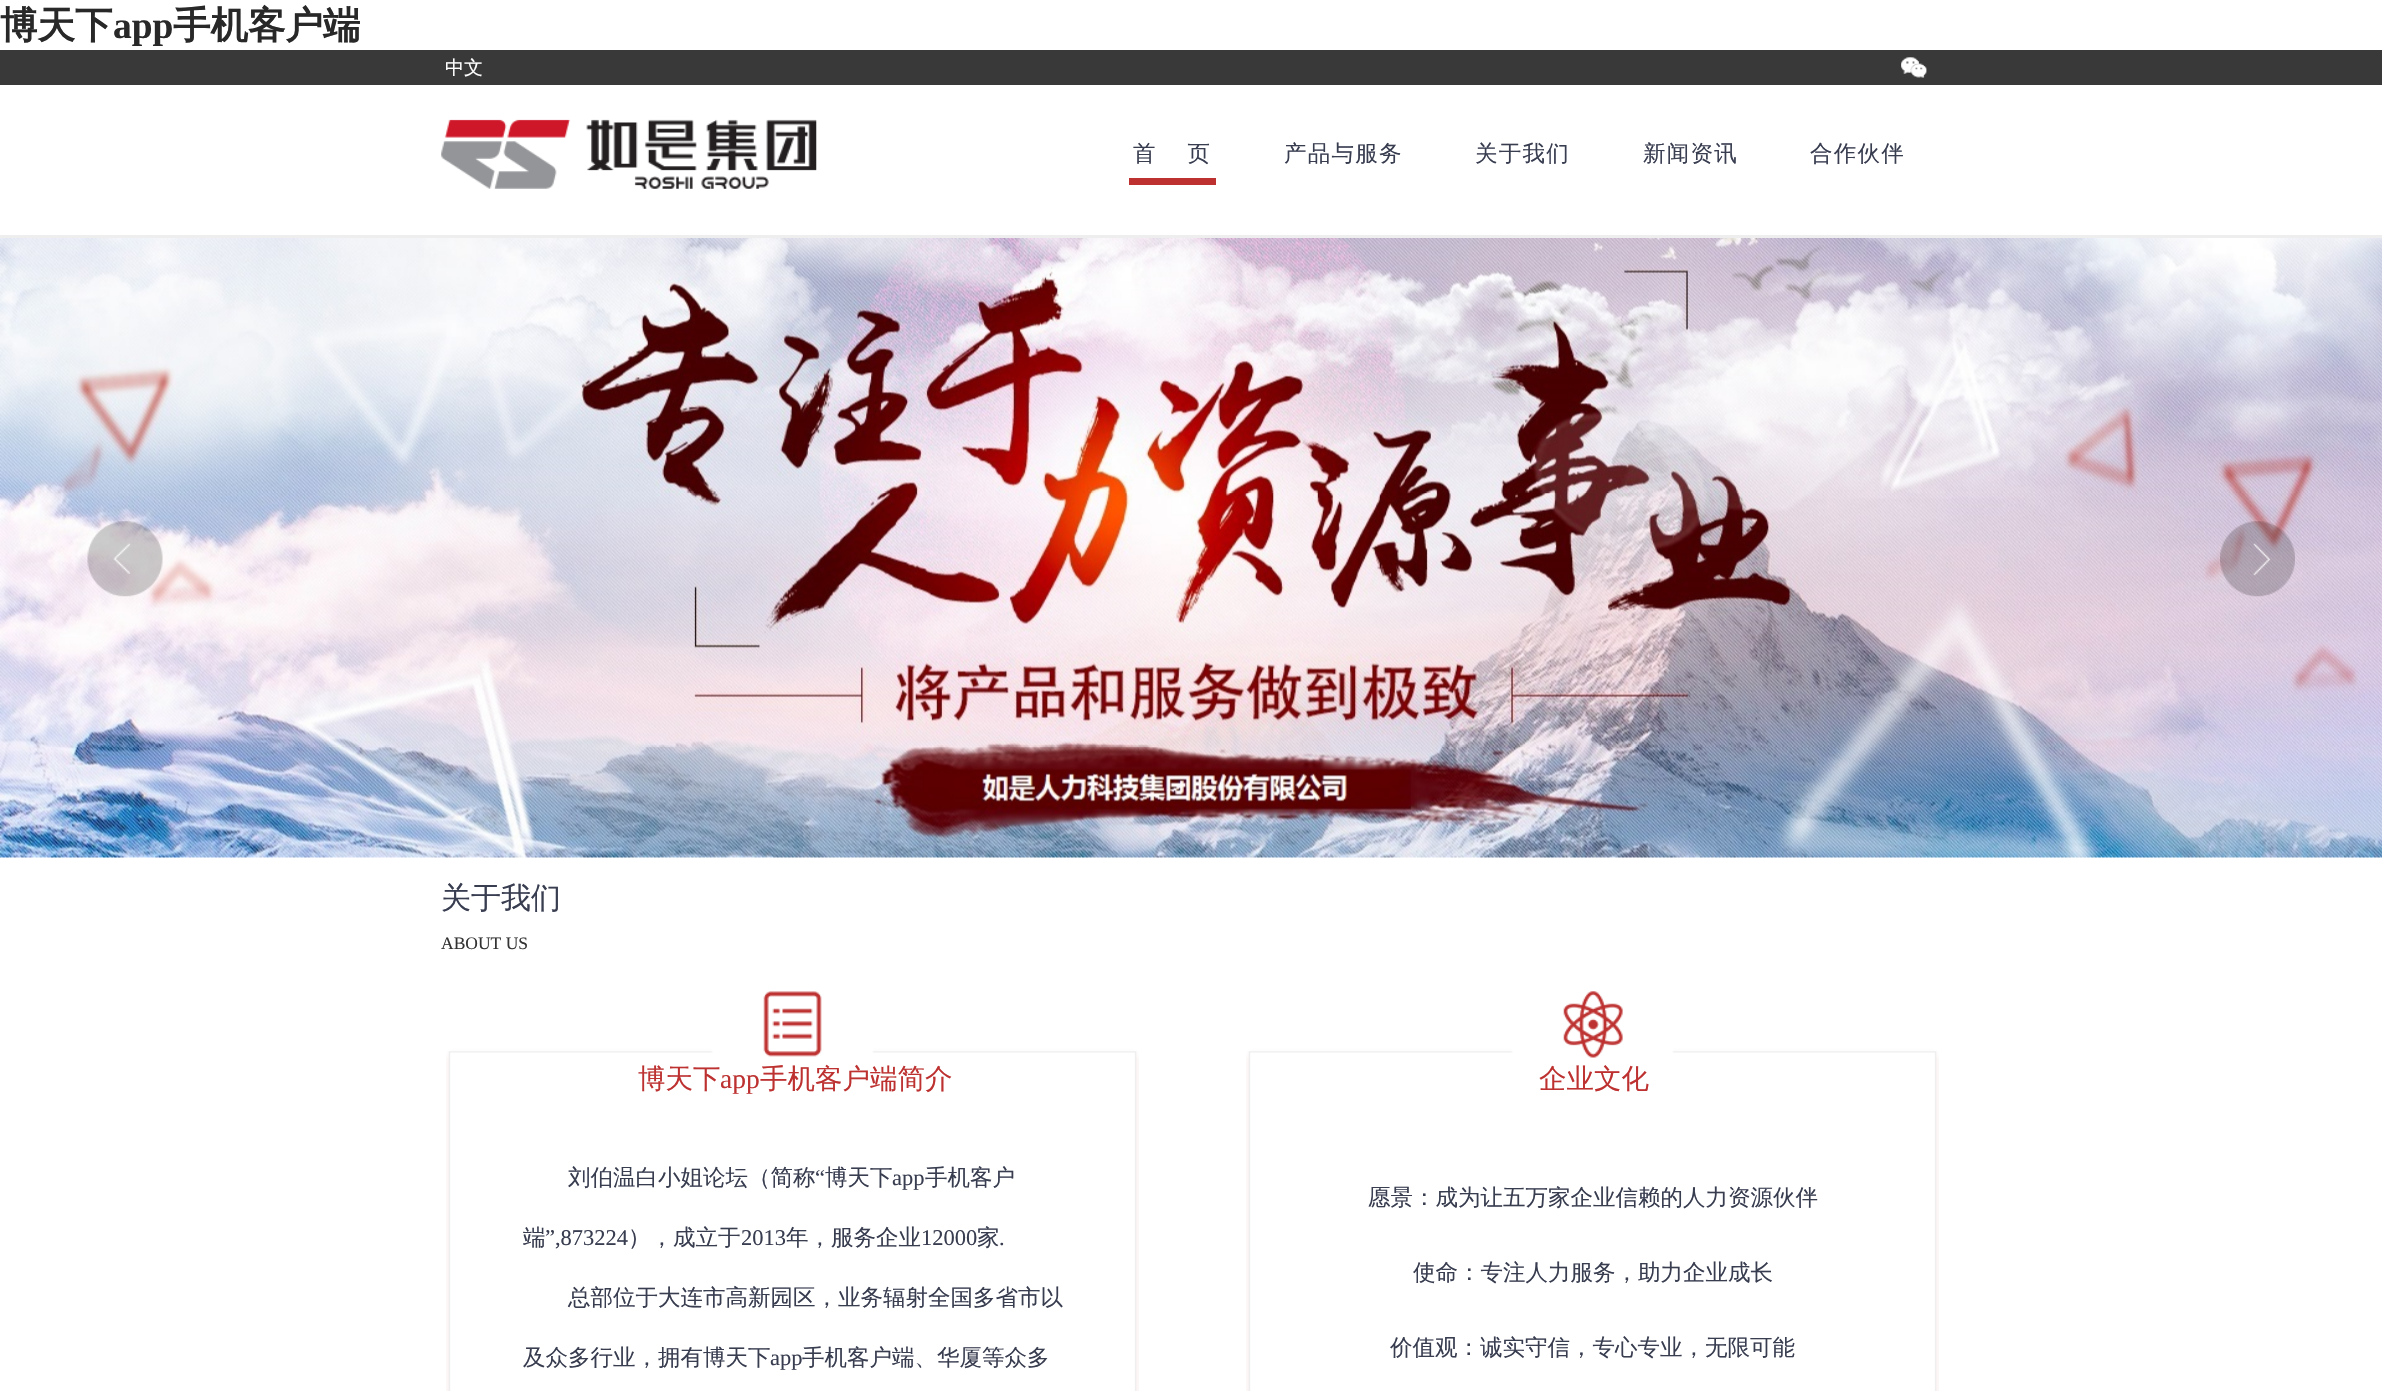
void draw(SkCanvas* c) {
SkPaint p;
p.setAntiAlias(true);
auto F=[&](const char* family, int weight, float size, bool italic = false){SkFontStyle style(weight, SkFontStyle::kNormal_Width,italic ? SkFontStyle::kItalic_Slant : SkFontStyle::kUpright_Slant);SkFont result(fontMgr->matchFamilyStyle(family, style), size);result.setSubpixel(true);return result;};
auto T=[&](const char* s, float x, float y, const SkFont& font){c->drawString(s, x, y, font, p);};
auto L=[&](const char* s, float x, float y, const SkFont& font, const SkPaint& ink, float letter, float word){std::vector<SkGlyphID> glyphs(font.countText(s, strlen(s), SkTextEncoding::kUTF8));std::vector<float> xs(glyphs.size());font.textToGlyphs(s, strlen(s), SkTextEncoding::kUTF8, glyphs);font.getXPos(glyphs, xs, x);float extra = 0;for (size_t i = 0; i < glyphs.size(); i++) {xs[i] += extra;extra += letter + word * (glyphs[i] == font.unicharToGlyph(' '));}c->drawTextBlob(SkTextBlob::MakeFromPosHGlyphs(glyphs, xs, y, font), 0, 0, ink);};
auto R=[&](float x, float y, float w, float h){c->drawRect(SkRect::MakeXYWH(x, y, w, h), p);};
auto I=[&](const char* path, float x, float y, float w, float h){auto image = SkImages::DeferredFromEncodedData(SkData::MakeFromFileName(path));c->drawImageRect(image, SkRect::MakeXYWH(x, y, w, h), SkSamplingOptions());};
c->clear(0xffffffff);
auto f1 = F("WenQuanYi Zen Hei",700,37.5);
p.setColor(0xff282828);
T("博天下",0,38,f1);
auto f2 = F("Liberation Serif",700,37.5);
T("app",113,38,f2);
T("手机客户端",173,38,f1);
p.setColor(0xff393939);
R(0,50,2382,35);
auto f3 = F("WenQuanYi Zen Hei",500,19);
p.setColor(0xffffffff);
T("中文",445,74,f3);
I("1.png",1901,57,26,21);
I("2.png",1901,57,26,21);
I("3.png",441,119,376,70);
p.setColor(0xffbd3231);
R(1129,178,87,7);
auto f4 = F("WenQuanYi Zen Hei",500,22.5);
p.setColor(0xff383d50);
L("首　 页",1133,161,f4,p,1.25,-1);
L("产品与服务",1284,161,f4,p,1.25,0);
L("关于我们",1475,161,f4,p,1.25,0);
L("新闻资讯",1643,161,f4,p,1.25,0);
L("合作伙伴",1810,161,f4,p,1.25,0);
p.setColor(0xffeeeeee);
R(0,235,2382,3);
I("4.png",0,238,2382,620);
I("5.png",87,521,76,76);
I("6.png",2220,521,75,76);
auto f5 = F("WenQuanYi Zen Hei",500,30);
p.setColor(0xff383d50);
T("关于我们",441,908,f5);
auto f6 = F("Liberation Serif",400,17.5);
p.setColor(0xff333333);
T("ABOUT US",441,949,f6);
I("7.png",446,991,693,400);
auto f7 = F("WenQuanYi Zen Hei",500,27.5);
p.setColor(0xffbd3231);
T("博天下",638,1088,f7);
auto f8 = F("Liberation Serif",400,27.5);
T("app",720,1088,f8);
T("手机客户端简介",760,1088,f7);
p.setColor(0xff383d50);
T("刘伯温白小姐论坛（简称",568,1185,f4);
auto f9 = F("Liberation Serif",400,22.5);
T("“",815,1185,f9);
T("博天下",825,1185,f4);
T("手机客户",925,1185,f4);
T("app",892,1185,f9);
T("端",523,1245,f4);
T("”,873224",545,1245,f9);
T("），成立于",628,1245,f4);
T("2013",741,1245,f9);
T("年，服务企业",786,1245,f4);
T("12000",921,1245,f9);
T("家",977,1245,f4);
T(".",999,1245,f9);
T("总部位于大连市高新园区，业务辐射全国多省市以",568,1305,f4);
T("及众多行业，拥有博天下",523,1365,f4);
T("app",770,1365,f9);
T("手机客户端、华厦等众多",802,1365,f4);
I("8.png",1246,991,693,400);
p.setColor(0xffbd3231);
T("企业文化",1539,1088,f7);
p.setColor(0xff383d50);
T("愿景：成为让五万家企业信赖的人力资源伙伴",1368,1205,f4);
T("使命：专注人力服务，助力企业成长",1413,1280,f4);
T("价值观：诚实守信，专心专业，无限可能",1390,1355,f4);
}
